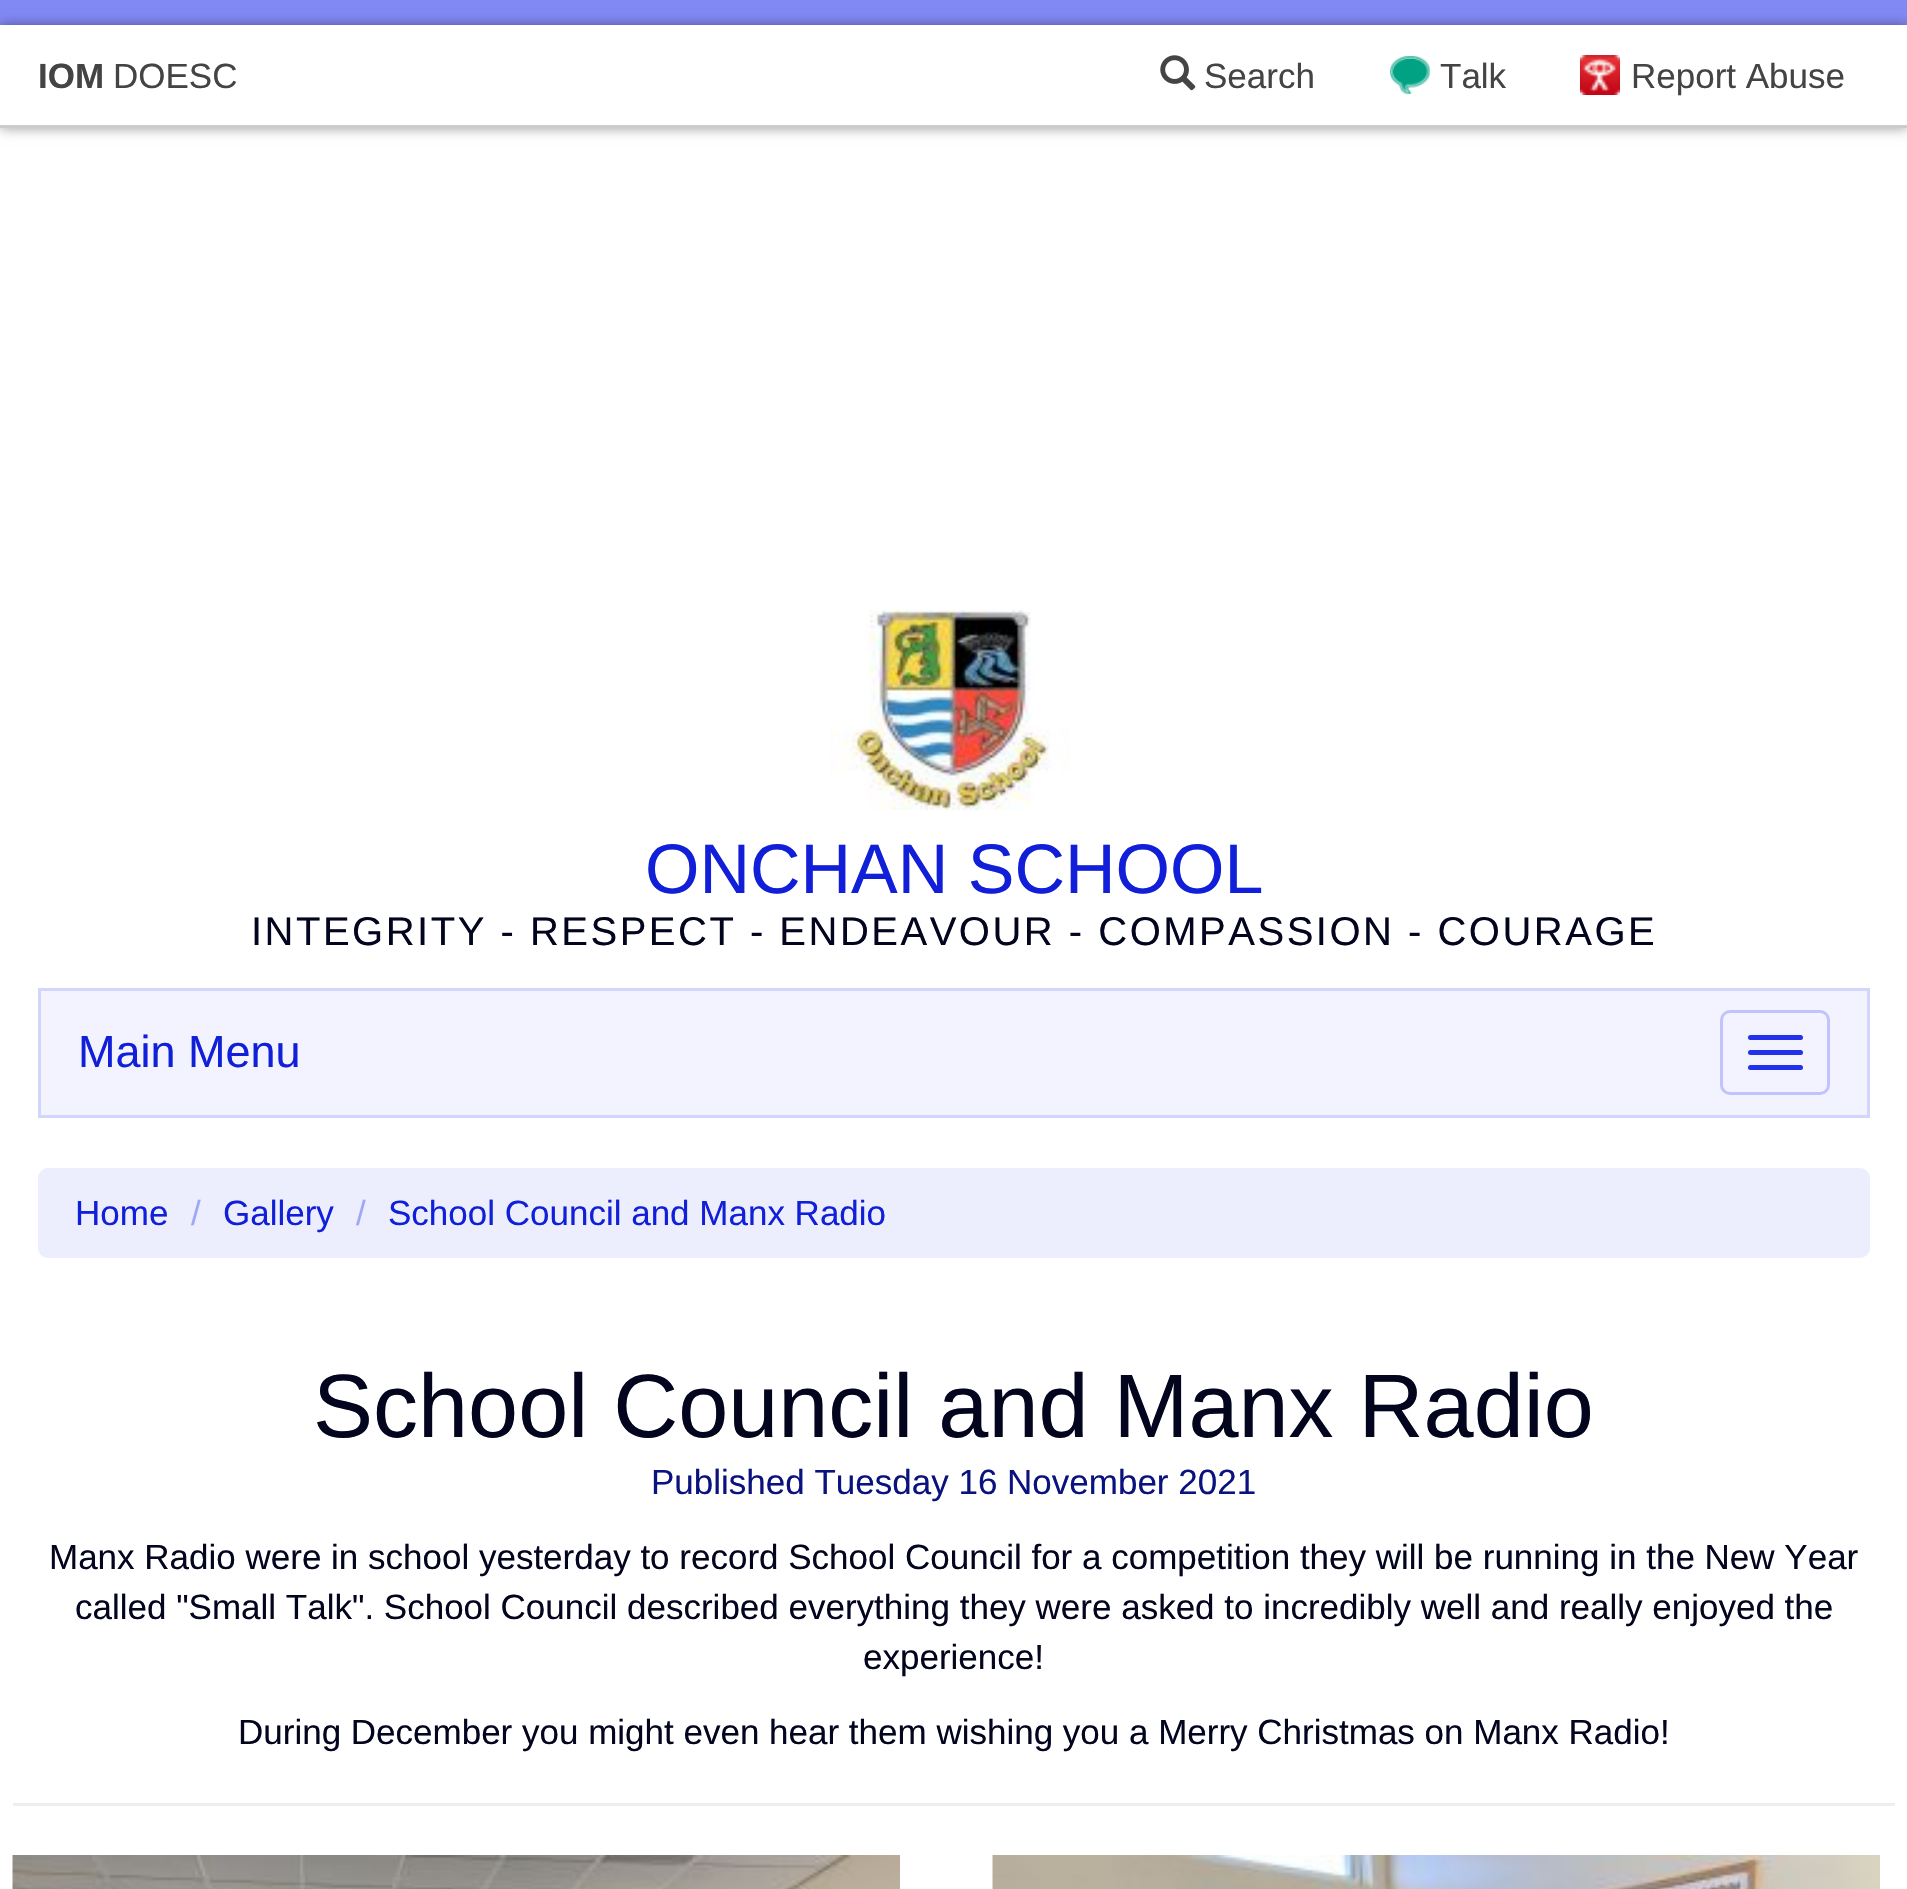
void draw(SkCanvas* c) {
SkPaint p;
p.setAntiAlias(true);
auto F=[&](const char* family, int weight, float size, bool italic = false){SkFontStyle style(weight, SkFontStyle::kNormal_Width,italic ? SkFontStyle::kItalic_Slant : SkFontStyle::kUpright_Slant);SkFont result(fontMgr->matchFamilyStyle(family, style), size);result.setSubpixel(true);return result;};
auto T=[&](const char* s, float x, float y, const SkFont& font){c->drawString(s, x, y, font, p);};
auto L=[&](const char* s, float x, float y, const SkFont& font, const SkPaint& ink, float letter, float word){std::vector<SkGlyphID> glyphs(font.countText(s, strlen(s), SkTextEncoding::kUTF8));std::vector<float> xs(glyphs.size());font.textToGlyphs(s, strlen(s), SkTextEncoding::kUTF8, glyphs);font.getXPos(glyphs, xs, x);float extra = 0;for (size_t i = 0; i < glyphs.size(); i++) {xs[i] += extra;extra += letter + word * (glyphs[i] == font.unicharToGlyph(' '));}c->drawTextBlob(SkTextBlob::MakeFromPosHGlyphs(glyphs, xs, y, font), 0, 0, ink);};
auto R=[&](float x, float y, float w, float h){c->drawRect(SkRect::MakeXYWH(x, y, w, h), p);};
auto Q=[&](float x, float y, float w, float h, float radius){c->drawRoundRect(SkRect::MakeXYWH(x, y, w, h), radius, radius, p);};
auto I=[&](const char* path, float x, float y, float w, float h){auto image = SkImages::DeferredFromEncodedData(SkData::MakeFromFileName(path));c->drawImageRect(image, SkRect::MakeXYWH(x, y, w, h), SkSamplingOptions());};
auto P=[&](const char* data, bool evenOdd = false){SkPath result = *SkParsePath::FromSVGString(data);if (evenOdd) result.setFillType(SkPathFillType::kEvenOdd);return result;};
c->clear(0xffffffff);
p.setColor(0xff8189f5);
R(0,0,1907,25);
c->save();
c->clipPath(P("M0 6h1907v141h-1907zm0 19h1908v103h-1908z",true),true);
p.setColor(0x66000000);
p.setMaskFilter(SkMaskFilter::MakeBlur(kNormal_SkBlurStyle, 6));
c->drawRect(SkRect::MakeXYWH(0,25,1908,103),p);
p.setMaskFilter(nullptr);
c->restore();
p.setColor(0xe6ffffff);
R(0,127,1907,1);
p.setColor(0x33000000);
R(0,125,1907,3);
auto f1 = F("Liberation Sans",700,35);
p.setColor(0xff444444);
T("IOM",38,88,f1);
auto f2 = F("Liberation Sans",400,35);
T("DOESC",113,88,f2);
I("1.png",1160,55,36,36);
T("Search",1204,88,f2);
I("2.png",1390,55,40,40);
T("Talk",1440,88,f2);
I("3.png",1580,55,40,40);
T("Report Abuse",1631,88,f2);
I("4.png",830,610,240,200);
auto f3 = F("Liberation Sans",400,70);
p.setColor(0xff111fd9);
T("ONCHAN SCHOOL",645,893,f3);
auto f4 = F("Liberation Sans",400,40);
p.setColor(0xff03051f);
L("INTEGRITY - RESPECT - ENDEAVOUR - COMPASSION - COURAGE",251,945,f4,p,2.5,0);
p.setColor(0xfff2f3fe);
c->drawRect(SkRect::MakeXYWH(39.5,989.5,1829,127),p);
p.setStroke(true);
p.setStrokeWidth(3);
p.setColor(0xffd3d5fb);
c->drawRect(SkRect::MakeXYWH(39.5,989.5,1829,127),p);
auto f5 = F("Liberation Sans",400,45);
p.setStroke(false);
p.setColor(0xff111fd9);
T("Main Menu",78,1067,f5);
p.setStroke(true);
p.setColor(0xffc0c4fa);
c->drawRoundRect(SkRect::MakeXYWH(1721.5,1011.5,107,82),8.5,8.5,p);
p.setStroke(false);
p.setColor(0xff2331ed);
Q(1748,1035,55,5,2.5);
Q(1748,1050,55,5,2.5);
Q(1748,1065,55,5,2.5);
p.setColor(0xffeceefe);
Q(38,1168,1832,90,10);
p.setColor(0xff111fd9);
T("Home",75,1225,f2);
p.setColor(0xffa1a7f7);
T("/",191,1225,f2);
p.setColor(0xff111fd9);
T("Gallery",223,1225,f2);
p.setColor(0xffa1a7f7);
T("/",356,1225,f2);
p.setColor(0xff111fd9);
T("School Council and Manx Radio",388,1225,f2);
p.setColor(0xffeeeeee);
R(13,1803,1882,3);
auto f6 = F("Liberation Sans",400,90);
p.setColor(0xff03051f);
T("School Council and Manx Radio",313,1437,f6);
p.setColor(0xff0a127e);
T("Published Tuesday 16 November 2021",651,1494,f2);
p.setColor(0xff03051f);
T("Manx Radio were in school yesterday to record School Council for a competition they will be running in the New Year",49,1569,f2);
T("called \"Small Talk\". School Council described everything they were asked to incredibly well and really enjoyed the",75,1619,f2);
T("experience!",863,1669,f2);
T("During December you might even hear them wishing you a Merry Christmas on Manx Radio!",238,1744,f2);
I("5.png",12,1855,888,34);
I("6.png",992,1855,888,34);
}
